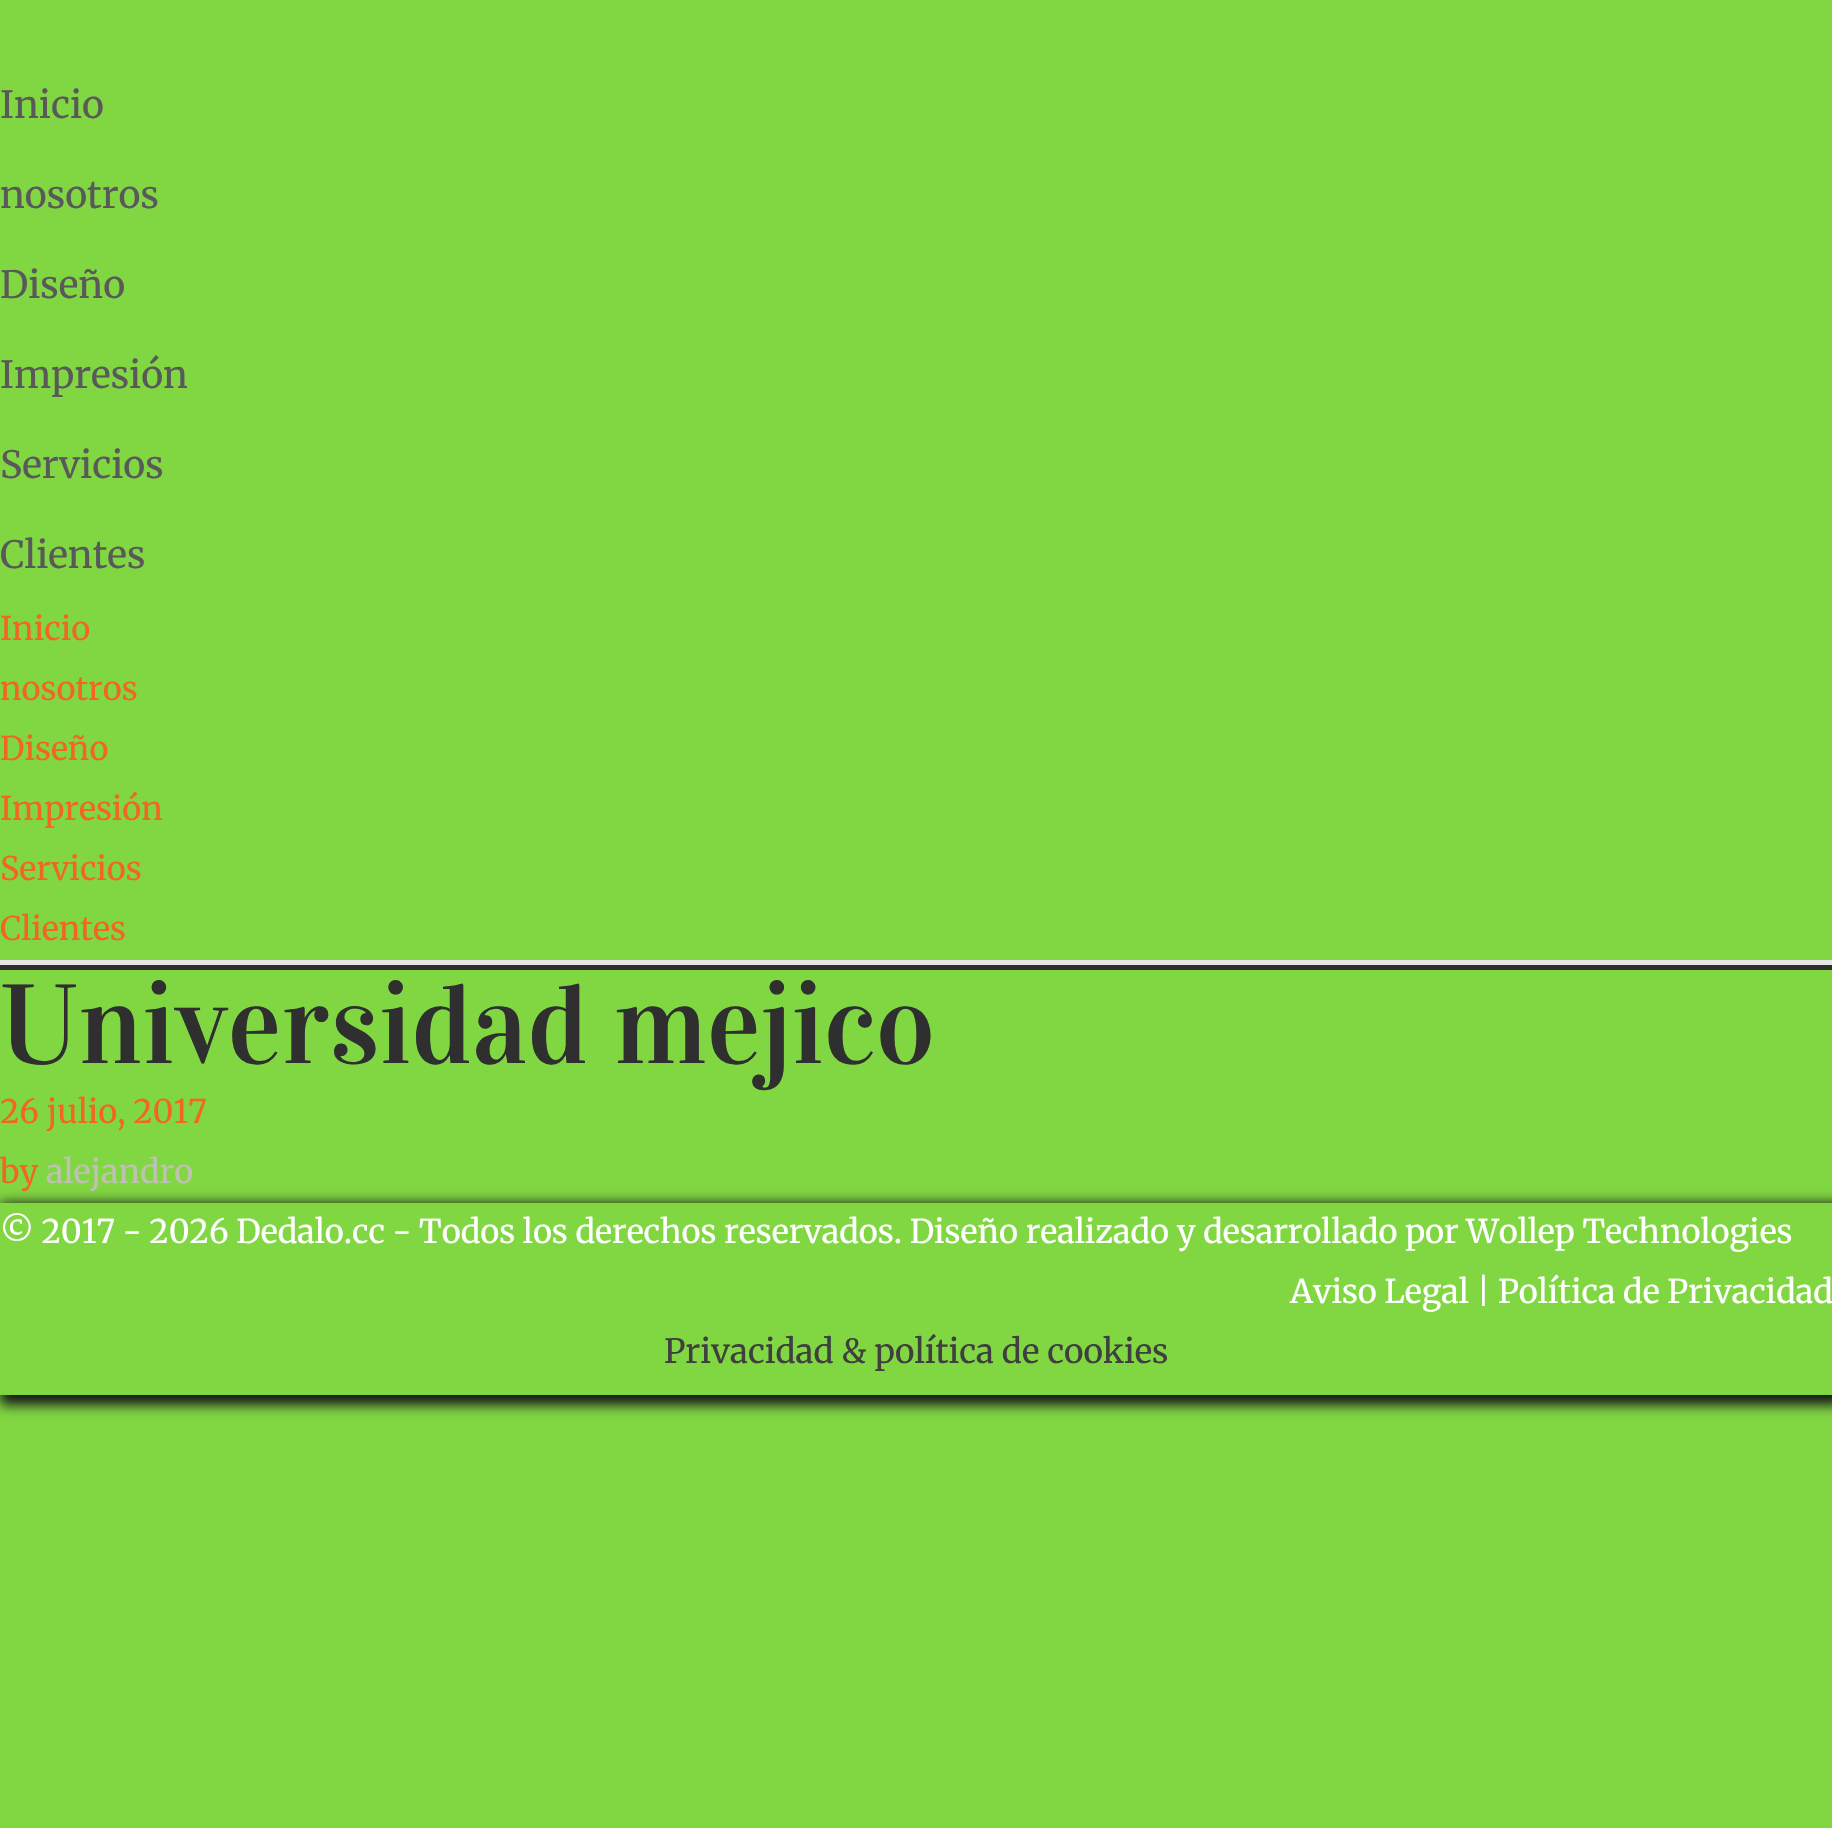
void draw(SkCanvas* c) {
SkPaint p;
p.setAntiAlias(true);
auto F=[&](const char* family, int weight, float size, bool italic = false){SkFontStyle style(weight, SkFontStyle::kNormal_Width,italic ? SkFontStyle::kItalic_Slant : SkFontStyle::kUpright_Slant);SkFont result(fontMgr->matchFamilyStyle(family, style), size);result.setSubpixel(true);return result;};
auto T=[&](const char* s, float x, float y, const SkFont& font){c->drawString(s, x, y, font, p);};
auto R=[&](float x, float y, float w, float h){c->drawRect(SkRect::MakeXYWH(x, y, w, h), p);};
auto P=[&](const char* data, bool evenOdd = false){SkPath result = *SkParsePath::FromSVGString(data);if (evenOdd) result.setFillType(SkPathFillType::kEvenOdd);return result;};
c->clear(0xff81d742);
p.setColor(0xffe6e6e6);
R(0,960,1832,5);
auto f1 = F("Merriweather",400,37.5);
p.setColor(0xff595959);
T("Inicio",0,118,f1);
T("nosotros",0,208,f1);
T("Diseño",0,298,f1);
T("Impresión",0,388,f1);
T("Servicios",0,478,f1);
T("Clientes",0,568,f1);
auto f2 = F("Merriweather",400,32.5);
p.setColor(0xfff26522);
T("Inicio",0,640,f2);
T("nosotros",0,700,f2);
T("Diseño",0,760,f2);
T("Impresión",0,820,f2);
T("Servicios",0,880,f2);
T("Clientes",0,940,f2);
p.setColor(0xff2f2f2f);
R(0,965,1832,5);
auto f3 = F("Vidaloka",400,112.5);
T("Universidad mejico",0,1063,f3);
p.setColor(0xfff26522);
T("26 julio, 2017",0,1123,f2);
c->save();
c->clipPath(P("M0 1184h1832v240h-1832zm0 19h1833v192h-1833z",true),true);
p.setColor(0xff161616);
p.setMaskFilter(SkMaskFilter::MakeBlur(kNormal_SkBlurStyle, 6));
c->drawRect(SkRect::MakeXYWH(0,1203,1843,202),p);
p.setMaskFilter(nullptr);
c->restore();
p.setColor(0xfff26522);
T("by",0,1183,f2);
p.setColor(0xffc1c0b4);
T("alejandro",46,1183,f2);
p.setColor(0xffffffff);
T("© 2017 - 2026 Dedalo.cc - Todos los derechos reservados. Diseño realizado y desarrollado por Wollep Technologies",0,1243,f2);
T("Aviso Legal | Política de Privacidad",1290,1303,f2);
auto f4 = F("Merriweather",400,33.3);
p.setColor(0xff3f3f3f);
T("Privacidad & política de cookies",664,1363,f4);
}
